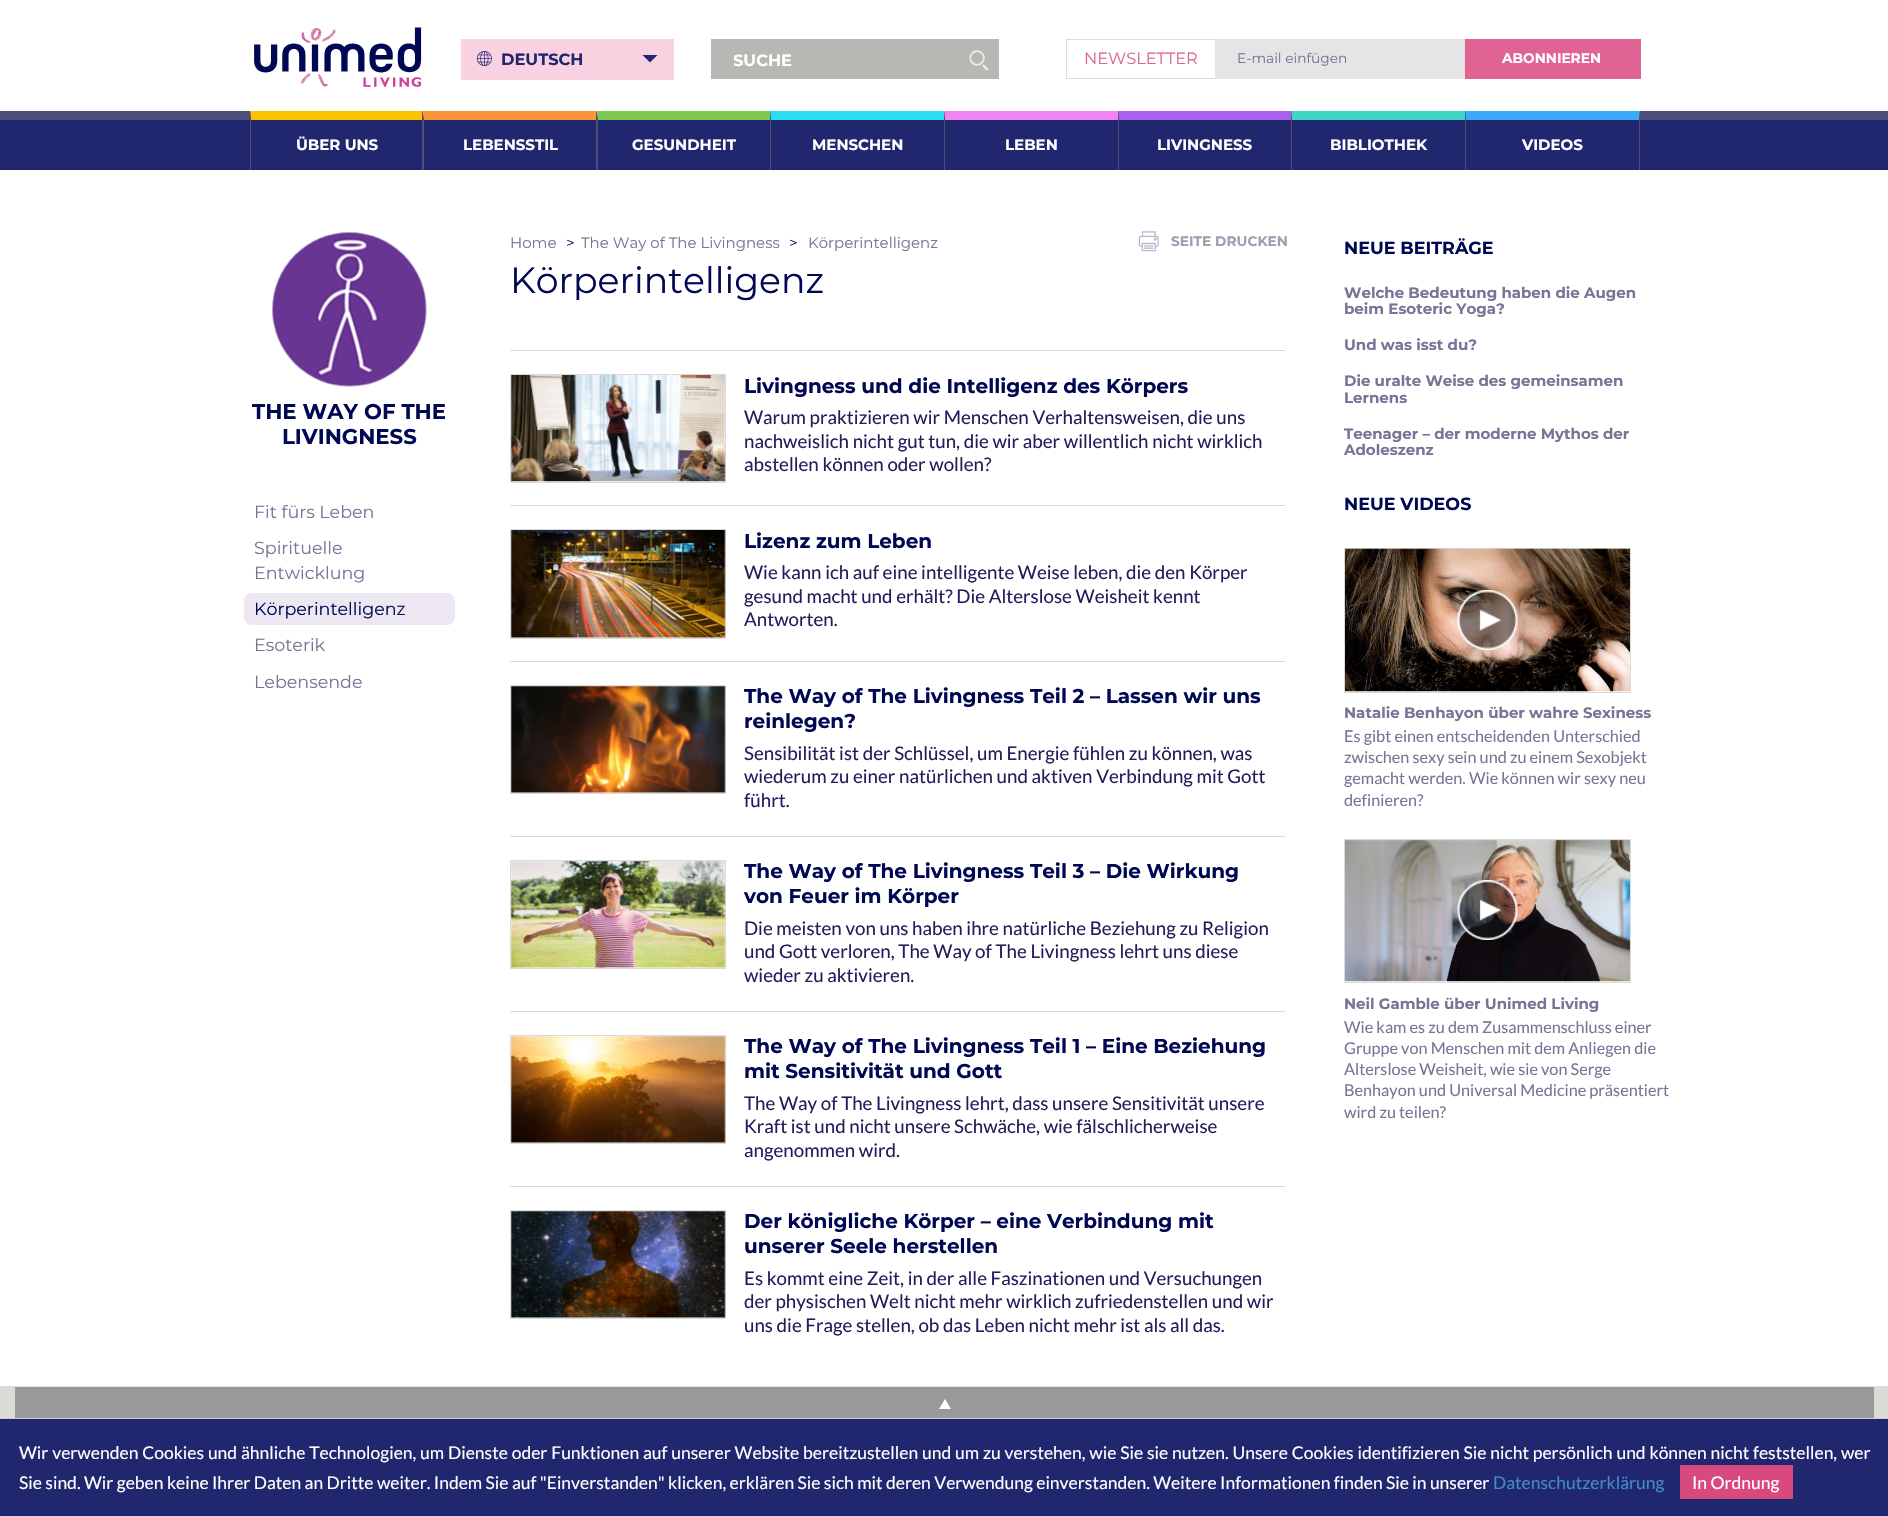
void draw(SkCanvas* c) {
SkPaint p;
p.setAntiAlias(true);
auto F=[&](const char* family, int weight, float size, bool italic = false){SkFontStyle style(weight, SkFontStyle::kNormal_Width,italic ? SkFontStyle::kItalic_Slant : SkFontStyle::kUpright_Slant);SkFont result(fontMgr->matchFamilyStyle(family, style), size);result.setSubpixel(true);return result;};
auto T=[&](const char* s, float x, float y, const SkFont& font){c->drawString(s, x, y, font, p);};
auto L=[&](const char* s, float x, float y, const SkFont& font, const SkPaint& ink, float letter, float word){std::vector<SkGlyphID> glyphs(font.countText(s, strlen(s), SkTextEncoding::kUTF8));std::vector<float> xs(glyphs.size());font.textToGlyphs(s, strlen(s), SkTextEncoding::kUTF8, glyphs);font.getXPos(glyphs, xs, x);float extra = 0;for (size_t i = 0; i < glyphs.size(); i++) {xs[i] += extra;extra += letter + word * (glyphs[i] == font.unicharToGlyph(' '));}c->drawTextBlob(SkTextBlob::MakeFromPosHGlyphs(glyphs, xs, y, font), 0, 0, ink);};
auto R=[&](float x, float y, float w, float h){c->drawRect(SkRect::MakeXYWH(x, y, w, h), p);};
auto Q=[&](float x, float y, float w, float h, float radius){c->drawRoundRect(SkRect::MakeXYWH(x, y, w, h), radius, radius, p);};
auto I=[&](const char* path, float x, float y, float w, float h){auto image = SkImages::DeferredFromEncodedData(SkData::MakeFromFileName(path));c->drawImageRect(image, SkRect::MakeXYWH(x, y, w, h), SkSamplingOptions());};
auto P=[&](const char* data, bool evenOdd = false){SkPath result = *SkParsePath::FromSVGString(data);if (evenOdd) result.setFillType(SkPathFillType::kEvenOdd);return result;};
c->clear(0xffffffff);
I("1.png",254,27,168,60);
p.setColor(0xfff9d2e2);
R(461,39,213,41);
I("2.png",476,51,16,15);
auto f1 = F("Montserrat",700,16.25);
p.setColor(0xff20276e);
T("DEUTSCH",501,65,f1);
c->drawPath(P("M642.5 55h15l-7.5 7.5z"),p);
p.setColor(0xffb8b7b4);
R(711,39,288,40);
c->save();
c->clipRect(SkRect::MakeXYWH(734,50,225,20));
p.setColor(0xffffffff);
T("SUCHE",733,66,f1);
c->restore();
I("3.png",969,50,20,21);
p.setStroke(true);
p.setStrokeWidth(1);
p.setColor(0xffdddddd);
c->drawRect(SkRect::MakeXYWH(1066.5,39.5,149,39),p);
auto f2 = F("Montserrat",400,16.25);
p.setStroke(false);
p.setColor(0xffdf6493);
T("NEWSLETTER",1084,64,f2);
p.setColor(0xffe5e5e5);
R(1215,39,250,40);
auto f3 = F("Montserrat",400,13.75);
p.setColor(0xff767596);
T("E-mail einfügen",1237,63,f3);
p.setColor(0xffdf6493);
R(1465,39,176,40);
auto f4 = F("Montserrat",700,13.75);
p.setColor(0xffffffff);
T("ABONNIEREN",1502,63,f4);
p.setColor(0xff20276e);
R(0,120,1888,50);
p.setColor(0xff4c4e78);
R(0,111,1888,9);
p.setColor(0xfffcc200);
c->drawPath(P("M250 111h172v9h-171z"),p);
p.setColor(0xff4d5071);
c->drawPath(P("M250 170v-59l1 9v50z"),p);
auto f5 = F("Montserrat",700,15);
p.setColor(0xffffffff);
T("ÜBER UNS",296,150,f5);
p.setColor(0xfffc9438);
c->drawPath(P("M422 111h174v9h-172z"),p);
p.setColor(0xff4d5071);
c->drawPath(P("M422 170v-59l2 9v50z"),p);
p.setColor(0xffffffff);
T("LEBENSSTIL",463,150,f5);
p.setColor(0xff7dc950);
c->drawPath(P("M596 111h174v9h-172z"),p);
p.setColor(0xff4d5071);
c->drawPath(P("M596 170v-59l2 9v50z"),p);
p.setColor(0xffffffff);
T("GESUNDHEIT",632,150,f5);
p.setColor(0xff2cdef2);
c->drawPath(P("M770 111h174v9h-173z"),p);
p.setColor(0xff4d5071);
c->drawPath(P("M770 170v-59l1 9v50z"),p);
p.setColor(0xffffffff);
T("MENSCHEN",812,150,f5);
p.setColor(0xfff284f3);
c->drawPath(P("M944 111h174v9h-173z"),p);
p.setColor(0xff4d5071);
c->drawPath(P("M944 170v-59l1 9v50z"),p);
p.setColor(0xffffffff);
T("LEBEN",1005,150,f5);
p.setColor(0xffa860f0);
c->drawPath(P("M1118 111h173v9h-172z"),p);
p.setColor(0xff4d5071);
c->drawPath(P("M1118 170v-59l1 9v50z"),p);
p.setColor(0xffffffff);
T("LIVINGNESS",1157,150,f5);
p.setColor(0xff3ed6c2);
c->drawPath(P("M1291 111h174v9h-173z"),p);
p.setColor(0xff4d5071);
c->drawPath(P("M1291 170v-59l1 9v50z"),p);
p.setColor(0xffffffff);
T("BIBLIOTHEK",1330,150,f5);
p.setColor(0xff39aafa);
c->drawPath(P("M1465 111h175l-1 9h-173z"),p);
p.setColor(0xff4d5071);
c->drawPath(P("M1640 111v59h-1v-50z"),p);
c->drawPath(P("M1465 170v-59l1 9v50z"),p);
p.setColor(0xffffffff);
T("VIDEOS",1522,150,f5);
I("4.png",272,232,155,155);
auto f6 = F("Montserrat",700,21.25);
p.setColor(0xff000853);
T("THE WAY OF THE",252,419,f6);
T("LIVINGNESS",282,444,f6);
auto f7 = F("Montserrat",400,17.5);
p.setColor(0xff767596);
T("Fit fürs Leben",254,518,f7);
T("Spirituelle",254,554,f7);
T("Entwicklung",254,579,f7);
p.setColor(0xffede7f2);
Q(244,593,211,32,8);
p.setColor(0xff000853);
T("Körperintelligenz",254,615,f7);
p.setColor(0xff767596);
T("Esoterik",254,651,f7);
T("Lebensende",254,688,f7);
auto f8 = F("Montserrat",400,15);
T("Home",510,248,f8);
p.setColor(0xff000853);
T(">",566,248,f8);
p.setColor(0xff767596);
T("The Way of The Livingness",581,248,f8);
p.setColor(0xff000853);
T(">",789,248,f8);
p.setColor(0xff767596);
T("Körperintelligenz",808,248,f8);
I("5.png",1138,231,21,21);
p.setColor(0xff9f9dae);
T("SEITE DRUCKEN",1171,246,f4);
auto f9 = F("Montserrat",400,36.25);
p.setColor(0xff000853);
T("Körperintelligenz",510,293,f9);
p.setColor(0xffdcdad5);
R(510,350,775,1);
p.setStroke(true);
p.setColor(0xffdadada);
c->drawRect(SkRect::MakeXYWH(510.5,374.5,215,108),p);
I("6.png",511,375,215,107);
auto f10 = F("Montserrat",700,20);
p.setStroke(false);
p.setColor(0xff000853);
T("Livingness und die Intelligenz des Körpers",744,393,f10);
auto f11 = F("Lato",400,18.75);
p.setColor(0xff231d5b);
T("Warum praktizieren wir Menschen Verhaltensweisen, die uns",744,424,f11);
T("nachweislich nicht gut tun, die wir aber willentlich nicht wirklich",744,448,f11);
T("abstellen können oder wollen?",744,471,f11);
p.setColor(0xffdcdad5);
R(510,505,775,1);
p.setStroke(true);
p.setColor(0xffdadada);
c->drawRect(SkRect::MakeXYWH(510.5,529.5,215,109),p);
I("7.png",511,530,215,108);
p.setStroke(false);
p.setColor(0xff000853);
T("Lizenz zum Leben",744,548,f10);
p.setColor(0xff231d5b);
T("Wie kann ich auf eine intelligente Weise leben, die den Körper",744,579,f11);
T("gesund macht und erhält? Die Alterslose Weisheit kennt",744,603,f11);
T("Antworten.",744,626,f11);
p.setColor(0xffdcdad5);
R(510,661,775,1);
p.setStroke(true);
p.setColor(0xffdadada);
c->drawRect(SkRect::MakeXYWH(510.5,685.5,215,108),p);
I("8.png",511,686,215,107);
p.setStroke(false);
p.setColor(0xff000853);
T("The Way of The Livingness Teil 2 – Lassen wir uns",744,703,f10);
T("reinlegen?",744,728,f10);
p.setColor(0xff231d5b);
T("Sensibilität ist der Schlüssel, um Energie fühlen zu können, was",744,760,f11);
T("wiederum zu einer natürlichen und aktiven Verbindung mit Gott",744,783,f11);
T("führt.",744,807,f11);
p.setColor(0xffdcdad5);
R(510,836,775,1);
p.setStroke(true);
p.setColor(0xffdadada);
c->drawRect(SkRect::MakeXYWH(510.5,860.5,215,108),p);
I("9.png",511,861,215,107);
p.setStroke(false);
p.setColor(0xff000853);
T("The Way of The Livingness Teil 3 – Die Wirkung",744,878,f10);
T("von Feuer im Körper",744,903,f10);
p.setColor(0xff231d5b);
T("Die meisten von uns haben ihre natürliche Beziehung zu Religion",744,935,f11);
T("und Gott verloren, The Way of The Livingness lehrt uns diese",744,958,f11);
T("wieder zu aktivieren.",744,982,f11);
p.setColor(0xffdcdad5);
R(510,1011,775,1);
p.setStroke(true);
p.setColor(0xffdadada);
c->drawRect(SkRect::MakeXYWH(510.5,1035.5,215,108),p);
I("10.png",511,1036,215,107);
p.setStroke(false);
p.setColor(0xff000853);
T("The Way of The Livingness Teil 1 – Eine Beziehung",744,1053,f10);
T("mit Sensitivität und Gott",744,1078,f10);
p.setColor(0xff231d5b);
T("The Way of The Livingness lehrt, dass unsere Sensitivität unsere",744,1110,f11);
T("Kraft ist und nicht unsere Schwäche, wie fälschlicherweise",744,1133,f11);
T("angenommen wird.",744,1157,f11);
p.setColor(0xffdcdad5);
R(510,1186,775,1);
p.setStroke(true);
p.setColor(0xffdadada);
c->drawRect(SkRect::MakeXYWH(510.5,1210.5,215,108),p);
I("11.png",511,1211,215,107);
p.setStroke(false);
p.setColor(0xff000853);
T("Der königliche Körper – eine Verbindung mit",744,1228,f10);
T("unserer Seele herstellen",744,1253,f10);
p.setColor(0xff231d5b);
T("Es kommt eine Zeit, in der alle Faszinationen und Versuchungen",744,1285,f11);
T("der physischen Welt nicht mehr wirklich zufriedenstellen und wir",744,1308,f11);
T("uns die Frage stellen, ob das Leben nicht mehr ist als all das.",744,1332,f11);
auto f12 = F("Montserrat",700,17.5);
p.setColor(0xff000853);
T("NEUE BEITRÄGE",1344,254,f12);
p.setColor(0xff767596);
T("Welche Bedeutung haben die Augen",1344,298,f5);
T("beim Esoteric Yoga?",1344,314,f5);
T("Und was isst du?",1344,350,f5);
T("Die uralte Weise des gemeinsamen",1344,386,f5);
T("Lernens",1344,403,f5);
T("Teenager – der moderne Mythos der",1344,439,f5);
T("Adoleszenz",1344,455,f5);
p.setColor(0xff000853);
T("NEUE VIDEOS",1344,510,f12);
p.setStroke(true);
p.setColor(0xffdadada);
c->drawRect(SkRect::MakeXYWH(1344.5,548.5,286,144),p);
I("12.png",1345,548,285,144);
I("13.png",1457,590,61,60);
p.setStroke(false);
p.setColor(0xff767596);
T("Natalie Benhayon über wahre Sexiness",1344,718,f5);
auto f13 = F("Lato",400,16.25);
T("Es gibt einen entscheidenden Unterschied",1344,742,f13);
T("zwischen sexy sein und zu einem Sexobjekt",1344,763,f13);
T("gemacht werden. Wie können wir sexy neu",1344,784,f13);
T("definieren?",1344,806,f13);
p.setStroke(true);
p.setColor(0xffdadada);
c->drawRect(SkRect::MakeXYWH(1344.5,839.5,286,143),p);
I("14.png",1345,840,285,142);
I("15.png",1457,880,61,60);
p.setStroke(false);
p.setColor(0xff767596);
T("Neil Gamble über Unimed Living",1344,1009,f5);
T("Wie kam es zu dem Zusammenschluss einer",1344,1033,f13);
T("Gruppe von Menschen mit dem Anliegen die",1344,1054,f13);
T("Alterslose Weisheit, wie sie von Serge",1344,1075,f13);
T("Benhayon und Universal Medicine präsentiert",1344,1096,f13);
T("wird zu teilen?",1344,1118,f13);
p.setColor(0xffdcdad5);
R(0,1386,1888,32);
p.setColor(0xff999999);
R(15,1387,1859,31);
p.setColor(0xffe5e5e5);
R(15,1386,1859,1);
p.setColor(0xffffffff);
c->drawPath(P("M951 1409h-12l6-10z"),p);
p.setColor(0xff20276e);
R(0,1419,1888,97);
p.setColor(0xffcccccc);
R(0,1418,1888,1);
auto f14 = F("Lato",400,17.5);
p.setColor(0xffffffff);
L("Wir verwenden Cookies und ähnliche Technologien, um Dienste oder Funktionen auf unserer Website bereitzustellen und um zu verstehen, wie Sie sie nutzen. Unsere Cookies identifizieren Sie nicht persönlich und können nicht feststellen, wer",19,1459,f14,p,0,.45);
T("Sie sind. Wir geben keine Ihrer Daten an Dritte weiter. Indem Sie auf \"Einverstanden\" klicken, erklären Sie sich mit deren Verwendung einverstanden. Weitere Informationen finden Sie in unserer",19,1489,f14);
p.setColor(0xff428bca);
T("Datenschutzerklärung",1493,1489,f14);
p.setColor(0xffd7497f);
R(1680,1465,113,34);
p.setColor(0xffffffff);
T("In Ordnung",1692,1489,f14);
}
